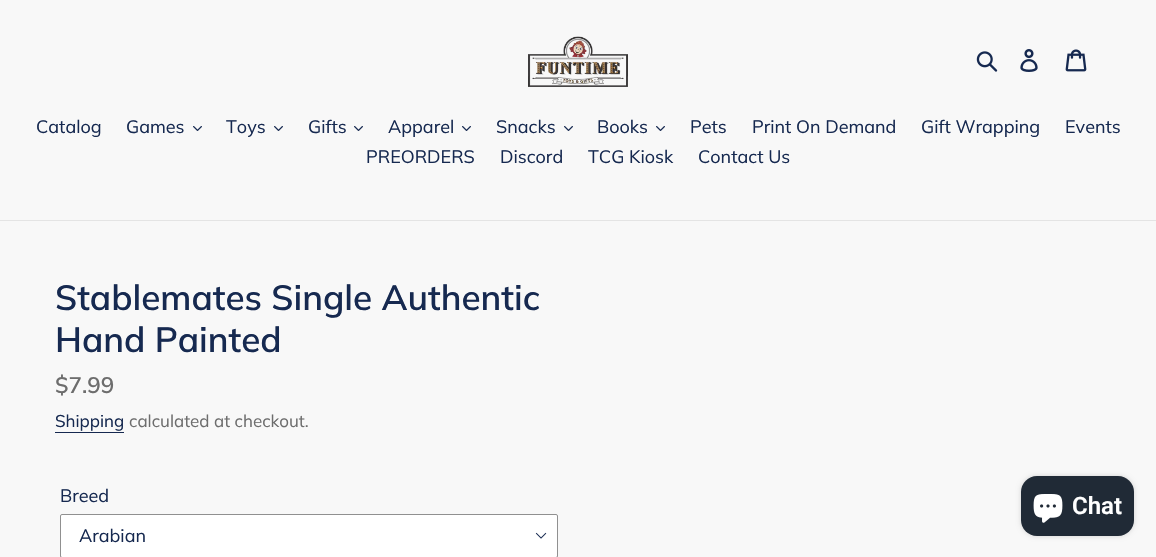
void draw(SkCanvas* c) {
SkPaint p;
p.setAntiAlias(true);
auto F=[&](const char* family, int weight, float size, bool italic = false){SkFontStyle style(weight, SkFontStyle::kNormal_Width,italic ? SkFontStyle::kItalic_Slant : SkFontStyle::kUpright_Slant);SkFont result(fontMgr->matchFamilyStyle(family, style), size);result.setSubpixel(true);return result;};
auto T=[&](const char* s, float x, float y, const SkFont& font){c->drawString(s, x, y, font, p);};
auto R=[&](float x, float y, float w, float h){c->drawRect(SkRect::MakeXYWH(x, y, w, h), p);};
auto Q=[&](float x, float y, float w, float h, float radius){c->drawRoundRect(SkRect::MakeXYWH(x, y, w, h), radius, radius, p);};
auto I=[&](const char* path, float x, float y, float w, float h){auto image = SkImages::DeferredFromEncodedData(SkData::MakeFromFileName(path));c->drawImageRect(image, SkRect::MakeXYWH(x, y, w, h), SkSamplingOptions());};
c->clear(0xfff8f8f8);
I("1.png",528,36,100,51);
I("2.png",976,51,22,21);
I("3.png",1020,49,18,23);
I("4.png",1065,49,22,23);
p.setColor(0xffe4e4e4);
R(0,220,1156,1);
auto f1 = F("Muli",400,18);
p.setColor(0xff162950);
T("Catalog",36,133,f1);
T("Games",126,133,f1);
I("5.png",193,126,9,5);
T("Toys",226,133,f1);
I("5.png",274,126,9,5);
T("Gifts",308,133,f1);
I("5.png",354,126,9,5);
T("Apparel",388,133,f1);
I("5.png",462,126,9,5);
T("Snacks",496,133,f1);
I("5.png",564,126,9,5);
T("Books",597,133,f1);
I("5.png",656,126,9,5);
T("Pets",690,133,f1);
T("Print On Demand",752,133,f1);
T("Gift Wrapping",921,133,f1);
T("Events",1065,133,f1);
T("PREORDERS",366,163,f1);
T("Discord",500,163,f1);
T("TCG Kiosk",588,163,f1);
T("Contact Us",698,163,f1);
auto f2 = F("Muli",600,35);
T("Stablemates Single Authentic",55,310,f2);
T("Hand Painted",55,352,f2);
auto f3 = F("Muli",600,22.5);
p.setColor(0xff6d6d6d);
T("$7.99",55,393,f3);
auto f4 = F("Muli",400,17);
p.setColor(0xff162950);
T("Shipping",55,427,f4);
R(55,432,69,1);
p.setColor(0xff6d6d6d);
T("calculated at checkout.",129,427,f4);
p.setColor(0xff162950);
T("Breed",60,502,f1);
p.setColor(0xffffffff);
Q(60,514,498,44,2);
I("6.png",535,532,12,7);
p.setStroke(true);
p.setStrokeWidth(1);
p.setColor(0xff909090);
c->drawRoundRect(SkRect::MakeXYWH(60.5,514.5,497,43),1.5,1.5,p);
p.setStroke(false);
p.setColor(0xff162950);
T("Arabian",79,542,f1);
p.setColor(0x26000000);
p.setMaskFilter(SkMaskFilter::MakeBlur(kNormal_SkBlurStyle, 2.5));
c->drawRoundRect(SkRect::MakeXYWH(1021,476,113,60),16,16,p);
p.setMaskFilter(nullptr);
p.setColor(0xff202a36);
Q(1021,476,113,60,16);
I("7.png",1033,494,30,29);
auto f5 = F("Roboto",600,24);
p.setColor(0xffffffff);
T("Chat",1072,514,f5);
}
